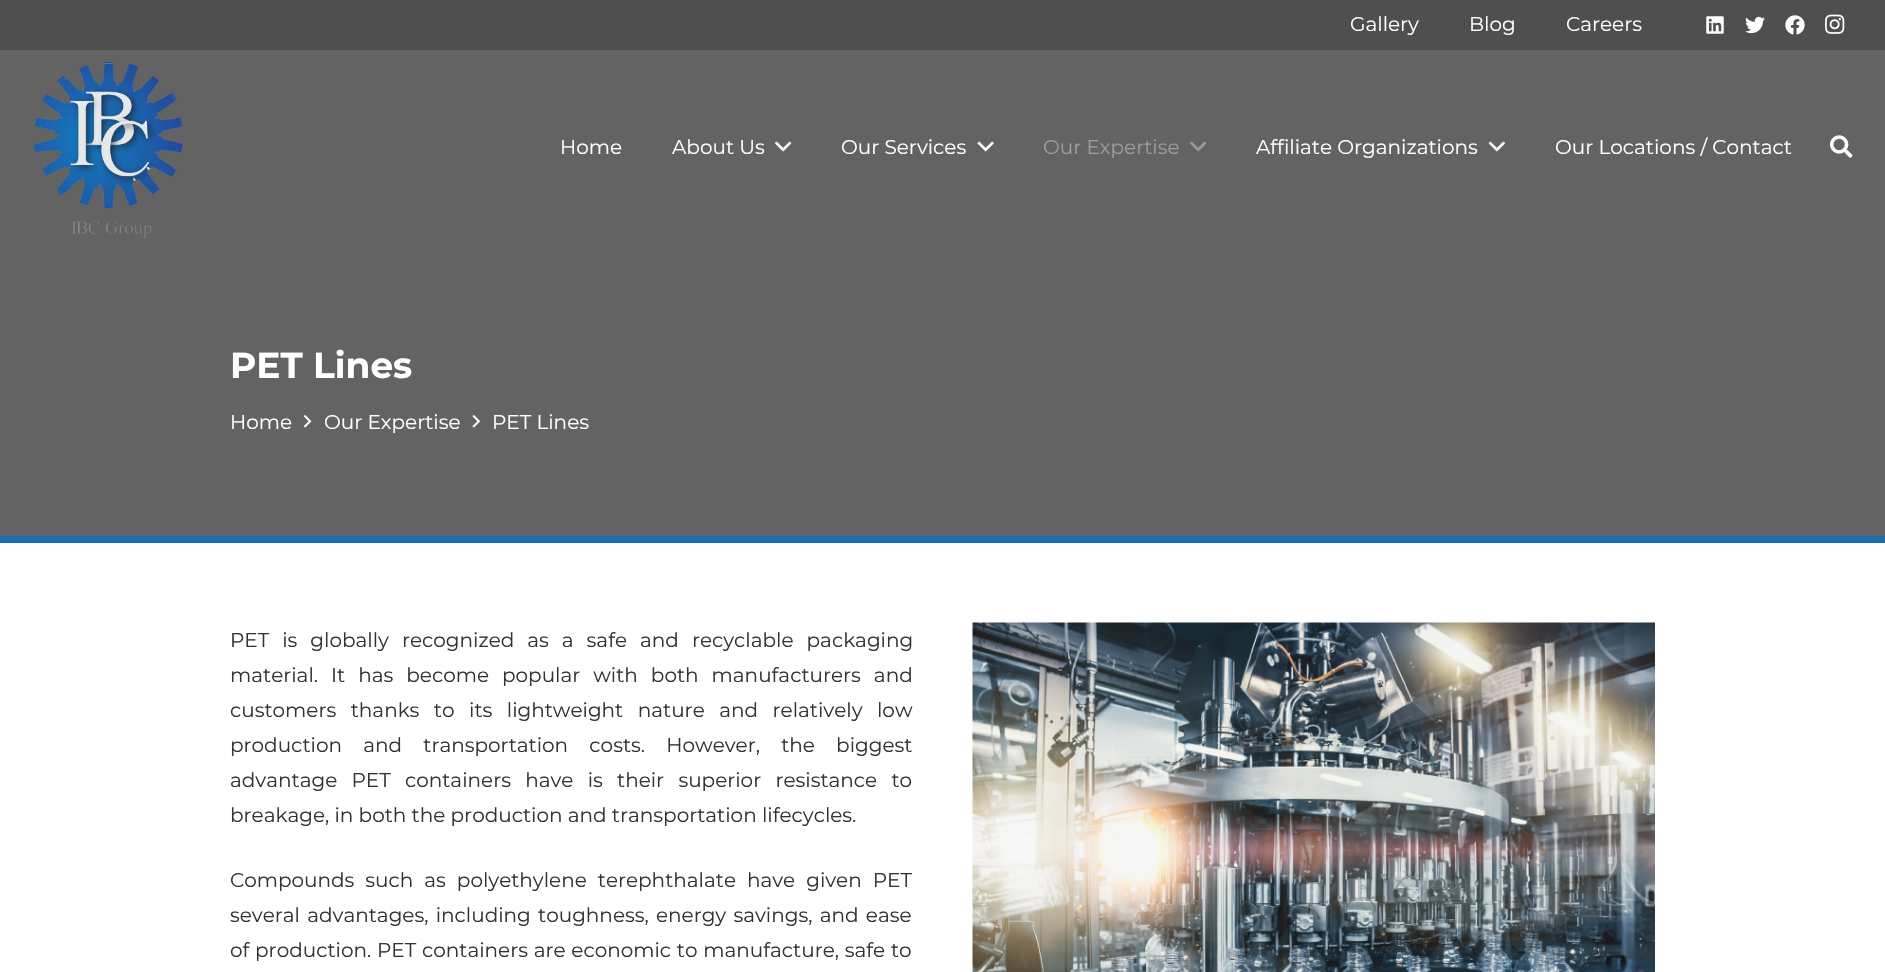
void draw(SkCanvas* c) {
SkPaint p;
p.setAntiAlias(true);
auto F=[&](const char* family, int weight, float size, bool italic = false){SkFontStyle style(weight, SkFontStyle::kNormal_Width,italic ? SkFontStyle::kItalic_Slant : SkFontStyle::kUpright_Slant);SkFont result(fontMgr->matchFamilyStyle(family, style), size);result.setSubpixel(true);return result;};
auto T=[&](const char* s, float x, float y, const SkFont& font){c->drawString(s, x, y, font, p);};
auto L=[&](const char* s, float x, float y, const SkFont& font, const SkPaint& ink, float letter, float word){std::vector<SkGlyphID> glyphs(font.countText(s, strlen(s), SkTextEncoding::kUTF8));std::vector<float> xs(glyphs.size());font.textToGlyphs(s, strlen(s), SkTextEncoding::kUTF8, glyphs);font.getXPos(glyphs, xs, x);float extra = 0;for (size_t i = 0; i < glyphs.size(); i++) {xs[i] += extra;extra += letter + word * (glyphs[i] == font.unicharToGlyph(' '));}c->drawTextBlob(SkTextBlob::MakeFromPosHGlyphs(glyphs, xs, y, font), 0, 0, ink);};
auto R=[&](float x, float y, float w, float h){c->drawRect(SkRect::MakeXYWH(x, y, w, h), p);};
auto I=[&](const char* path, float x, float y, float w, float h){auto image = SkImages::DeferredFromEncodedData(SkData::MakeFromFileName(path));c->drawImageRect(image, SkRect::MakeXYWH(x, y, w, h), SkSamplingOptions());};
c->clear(0xffffffff);
p.setColor(0xff4f4f4f);
R(0,0,1885,50);
auto f1 = F("Montserrat",400,20);
p.setColor(0xffffffff);
T("Gallery",1350,31,f1);
T("Blog",1469,31,f1);
T("Careers",1566,31,f1);
I("1.png",1706,16,18,18);
I("2.png",1745,16,20,18);
I("3.png",1785,15,20,20);
I("4.png",1825,14,20,20);
p.setColor(0xff636363);
R(0,50,1885,486);
I("5.png",33,62,150,176);
p.setColor(0xffffffff);
T("Home",560,154,f1);
T("About Us",672,154,f1);
I("6.png",775,141,17,11);
T("Our Services",841,154,f1);
I("7.png",977,141,17,11);
p.setColor(0xff9c9c9c);
T("Our Expertise",1043,154,f1);
I("8.png",1190,141,17,11);
p.setColor(0xffffffff);
T("Affiliate Organizations",1256,154,f1);
I("9.png",1488,141,17,11);
T("Our Locations / Contact",1555,154,f1);
I("10.png",1830,135,23,23);
p.setColor(0xff1f6bb4);
R(0,536,1885,7);
auto f2 = F("Montserrat",700,36);
p.setColor(0xffffffff);
T("PET Lines",230,378,f2);
T("Home",230,429,f1);
I("11.png",303,415,9,13);
T("Our Expertise",324,429,f1);
I("12.png",472,415,8,13);
T("PET Lines",492,429,f1);
p.setColor(0xff333333);
L("PET is globally recognized as a safe and recyclable packaging",230,647,f1,p,0,7.75);
L("material. It has become popular with both manufacturers and",230,682,f1,p,0,7.75);
L("customers thanks to its lightweight nature and relatively low",230,717,f1,p,0,9.25);
L("production and transportation costs. However, the biggest",230,752,f1,p,0,16);
L("advantage PET containers have is their superior resistance to",230,787,f1,p,0,9);
T("breakage, in both the production and transportation lifecycles.",230,822,f1);
L("Compounds such as polyethylene terephthalate have given PET",230,887,f1,p,0,5.75);
L("several advantages, including toughness, energy savings, and ease",230,922,f1,p,0,2);
L("of production. PET containers are economic to manufacture, safe to",230,957,f1,p,0,.5);
I("13.png",972,622,683,350);
}
